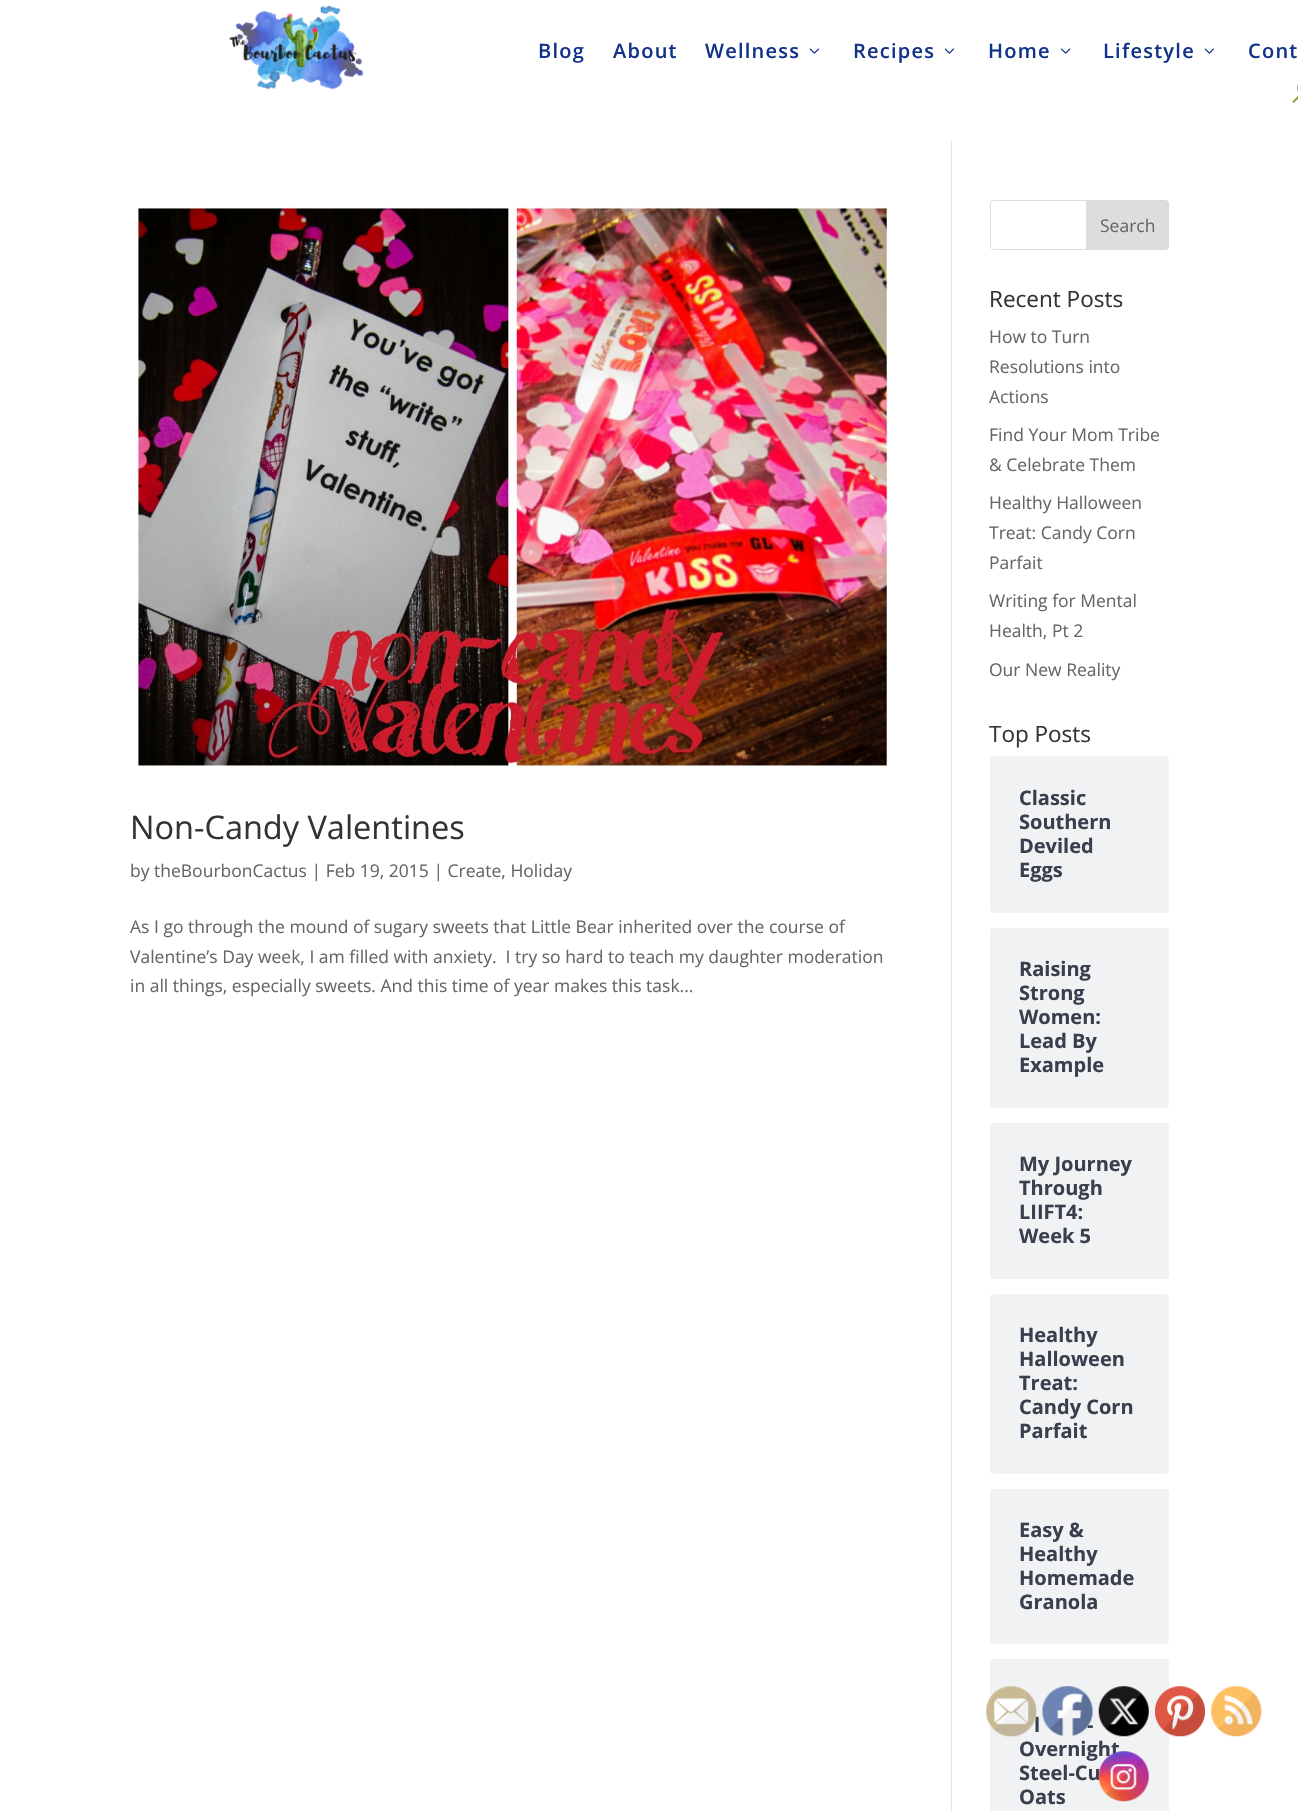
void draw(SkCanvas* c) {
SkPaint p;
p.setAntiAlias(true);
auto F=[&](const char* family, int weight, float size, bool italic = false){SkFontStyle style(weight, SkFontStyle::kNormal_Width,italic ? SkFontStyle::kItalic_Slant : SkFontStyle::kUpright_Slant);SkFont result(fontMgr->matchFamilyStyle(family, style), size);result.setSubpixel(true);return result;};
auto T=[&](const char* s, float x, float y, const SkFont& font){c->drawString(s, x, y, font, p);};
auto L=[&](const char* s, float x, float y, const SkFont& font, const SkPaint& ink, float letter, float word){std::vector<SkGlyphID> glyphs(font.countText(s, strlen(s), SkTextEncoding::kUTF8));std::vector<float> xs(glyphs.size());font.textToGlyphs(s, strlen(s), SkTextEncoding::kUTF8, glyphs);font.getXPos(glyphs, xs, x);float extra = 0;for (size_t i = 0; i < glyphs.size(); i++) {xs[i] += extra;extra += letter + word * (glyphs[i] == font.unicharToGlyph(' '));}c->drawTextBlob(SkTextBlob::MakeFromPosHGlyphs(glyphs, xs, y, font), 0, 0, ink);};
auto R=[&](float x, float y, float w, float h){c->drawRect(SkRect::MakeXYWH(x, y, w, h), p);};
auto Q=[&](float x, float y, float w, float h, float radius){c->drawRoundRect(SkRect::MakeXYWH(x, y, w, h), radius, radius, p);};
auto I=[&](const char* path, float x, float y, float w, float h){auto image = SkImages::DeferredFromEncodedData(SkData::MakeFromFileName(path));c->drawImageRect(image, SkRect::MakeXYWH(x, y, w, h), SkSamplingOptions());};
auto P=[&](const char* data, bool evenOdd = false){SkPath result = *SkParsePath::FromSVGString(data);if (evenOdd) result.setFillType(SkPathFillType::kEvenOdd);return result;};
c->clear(0xffffffff);
I("1.png",229,5,135,85);
auto f1 = F("Open Sans",600,20);
p.setColor(0xff113388);
L("Blog",538,58,f1,p,1.25,0);
L("About",613,58,f1,p,1.25,0);
L("Wellness",705,58,f1,p,1.25,0);
I("2.png",809,48,10,6);
L("Recipes",853,58,f1,p,1.25,0);
I("2.png",944,48,10,6);
L("Home",988,58,f1,p,1.25,0);
I("3.png",1061,48,10,6);
L("Lifestyle",1103,58,f1,p,1.25,0);
I("2.png",1204,48,10,6);
L("Cont",1248,58,f1,p,1.25,0);
I("4.png",1292,84,6,19);
p.setColor(0xffe2e2e2);
R(951,141,1,1670);
I("5.png",137,207,751,560);
auto f2 = F("Open Sans",400,32.5);
p.setColor(0xff333333);
T("Non-Candy Valentines",130,839,f2);
auto f3 = F("Open Sans",400,17.5);
p.setColor(0xff666666);
T("by theBourbonCactus | Feb 19, 2015 | Create, Holiday",130,877,f3);
T("As I go through the mound of sugary sweets that Little Bear inherited over the course of",130,933,f3);
T("Valentine’s Day week, I am filled with anxiety.  I try so hard to teach my daughter moderation",130,963,f3);
T("in all things, especially sweets. And this time of year makes this task...",130,992,f3);
p.setStroke(true);
p.setStrokeWidth(1);
p.setColor(0xffdddddd);
c->drawRoundRect(SkRect::MakeXYWH(990.5,200.5,178,49),3.5,3.5,p);
p.setStroke(false);
c->drawPath(P("M1086.5 200.5h78.5c2 0 3.5 1.5 3.5 3.5v42c0 2-1.5 3.5-3.5 3.5h-78.5z"),p);
p.setStroke(true);
c->drawPath(P("M1086.5 200.5h78.5c2 0 3.5 1.5 3.5 3.5v42c0 2-1.5 3.5-3.5 3.5h-78.5z"),p);
p.setStroke(false);
p.setColor(0xff666666);
T("Search",1100,232,f3);
auto f4 = F("Open Sans",400,22.5);
p.setColor(0xff333333);
T("Recent Posts",989,307,f4);
p.setColor(0xff666666);
T("How to Turn",989,343,f3);
T("Resolutions into",989,373,f3);
T("Actions",989,403,f3);
T("Find Your Mom Tribe",989,441,f3);
T("& Celebrate Them",989,471,f3);
T("Healthy Halloween",989,509,f3);
T("Treat: Candy Corn",989,539,f3);
T("Parfait",989,569,f3);
T("Writing for Mental",989,607,f3);
T("Health, Pt 2",989,637,f3);
T("Our New Reality",989,676,f3);
p.setColor(0xff333333);
T("Top Posts",989,742,f4);
p.setColor(0xfff0f2f4);
Q(990,756,179,157,4);
auto f5 = F("Open Sans",700,20);
p.setColor(0xff393f4c);
T("Classic",1019,805,f5);
T("Southern",1019,829,f5);
T("Deviled",1019,853,f5);
T("Eggs",1019,877,f5);
p.setColor(0xfff0f2f4);
Q(990,928,179,180,4);
p.setColor(0xff393f4c);
T("Raising",1019,976,f5);
T("Strong",1019,1000,f5);
T("Women:",1019,1024,f5);
T("Lead By",1019,1048,f5);
T("Example",1019,1072,f5);
p.setColor(0xfff0f2f4);
Q(990,1123,179,156,4);
p.setColor(0xff393f4c);
T("My Journey",1019,1171,f5);
T("Through",1019,1195,f5);
T("LIIFT4:",1019,1219,f5);
T("Week 5",1019,1243,f5);
p.setColor(0xfff0f2f4);
Q(990,1294,179,180,4);
p.setColor(0xff393f4c);
T("Healthy",1019,1342,f5);
T("Halloween",1019,1366,f5);
T("Treat:",1019,1390,f5);
T("Candy Corn",1019,1414,f5);
T("Parfait",1019,1438,f5);
p.setColor(0xfff0f2f4);
Q(990,1489,179,155,4);
p.setColor(0xff393f4c);
T("Easy &",1019,1537,f5);
T("Healthy",1019,1561,f5);
T("Homemade",1019,1585,f5);
T("Granola",1019,1609,f5);
p.setColor(0xfff0f2f4);
Q(990,1659,179,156,4);
p.setColor(0xff393f4c);
T("l",1034,1732,f5);
T("-",1087,1732,f5);
T("Overnight",1019,1756,f5);
T("Steel-Cu",1019,1780,f5);
T("Oats",1019,1804,f5);
I("6.png",986,1686,51,51);
I("7.png",1042,1686,51,51);
I("8.png",1098,1686,51,51);
I("9.png",1155,1686,50,51);
I("10.png",1211,1686,51,51);
I("11.png",1098,1751,51,51);
}
